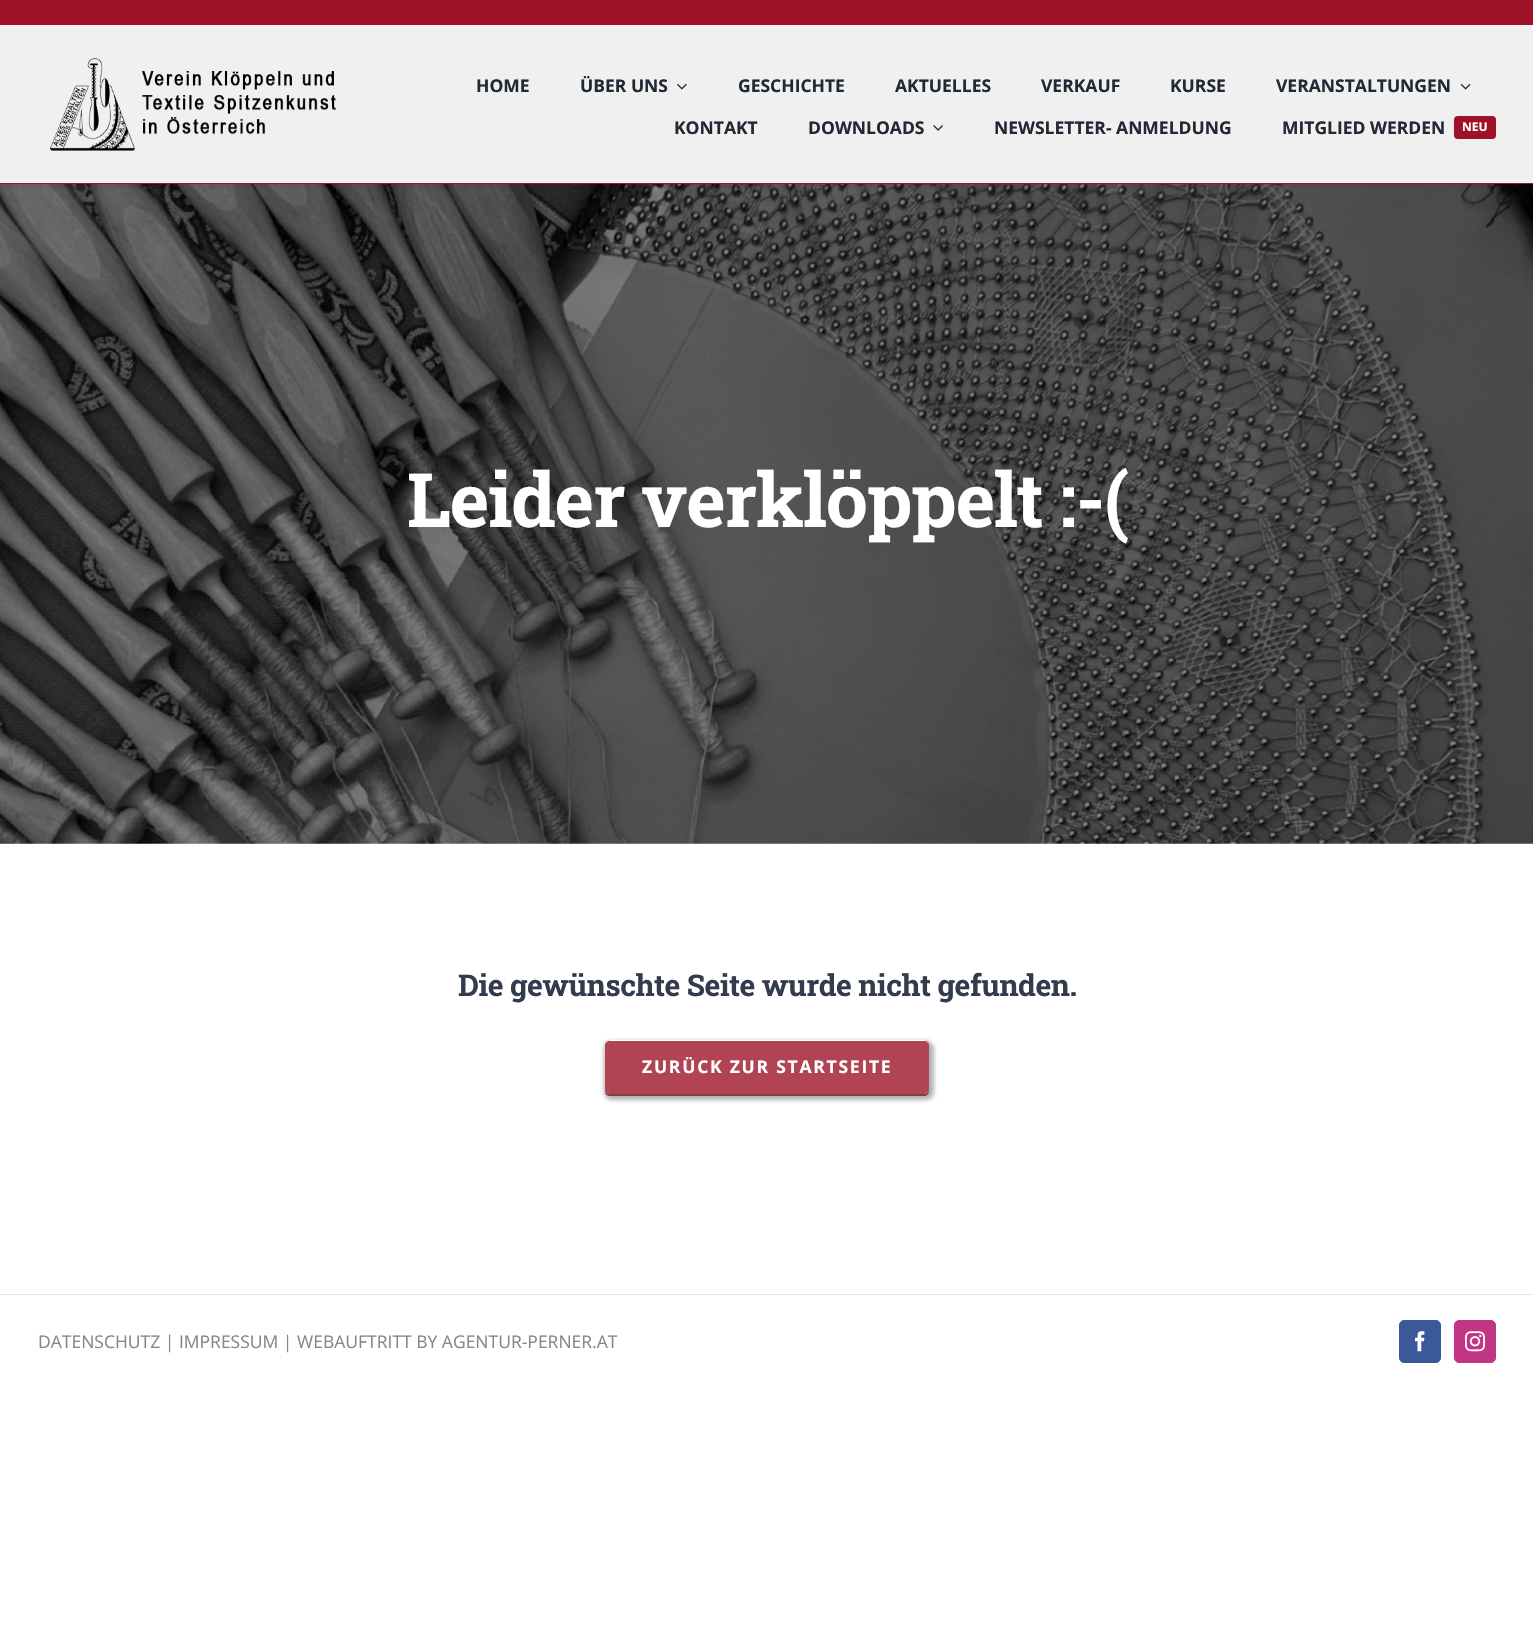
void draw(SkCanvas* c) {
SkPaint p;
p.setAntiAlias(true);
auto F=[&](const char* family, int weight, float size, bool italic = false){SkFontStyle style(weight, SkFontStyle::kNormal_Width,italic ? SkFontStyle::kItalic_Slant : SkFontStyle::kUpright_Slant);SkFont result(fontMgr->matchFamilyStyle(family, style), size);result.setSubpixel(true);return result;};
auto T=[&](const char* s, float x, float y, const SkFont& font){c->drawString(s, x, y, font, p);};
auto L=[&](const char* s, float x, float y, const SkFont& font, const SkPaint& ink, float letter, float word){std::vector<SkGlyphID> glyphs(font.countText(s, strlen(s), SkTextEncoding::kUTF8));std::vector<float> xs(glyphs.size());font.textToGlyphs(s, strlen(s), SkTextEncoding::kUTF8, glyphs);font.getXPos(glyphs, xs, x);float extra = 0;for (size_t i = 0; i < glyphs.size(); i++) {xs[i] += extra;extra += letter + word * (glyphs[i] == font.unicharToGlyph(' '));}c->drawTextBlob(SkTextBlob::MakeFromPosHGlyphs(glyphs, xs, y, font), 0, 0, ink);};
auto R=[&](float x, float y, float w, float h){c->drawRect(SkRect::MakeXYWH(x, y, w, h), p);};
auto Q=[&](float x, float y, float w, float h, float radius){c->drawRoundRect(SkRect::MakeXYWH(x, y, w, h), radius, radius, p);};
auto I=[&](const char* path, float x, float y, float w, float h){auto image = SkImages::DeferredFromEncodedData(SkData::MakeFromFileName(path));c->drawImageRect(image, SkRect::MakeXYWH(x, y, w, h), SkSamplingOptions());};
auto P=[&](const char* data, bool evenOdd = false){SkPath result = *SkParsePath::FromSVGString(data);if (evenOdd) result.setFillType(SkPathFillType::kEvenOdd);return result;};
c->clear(0xffffffff);
I("5.png",0,184,1533,660);
p.setColor(0x1a212121);
p.setMaskFilter(SkMaskFilter::MakeBlur(kNormal_SkBlurStyle, 3));
c->drawRect(SkRect::MakeXYWH(0,3,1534,183),p);
p.setMaskFilter(nullptr);
p.setColor(0xfff0f0f0);
R(0,25,1532,158);
p.setColor(0xff9e1129);
R(0,0,1533,25);
R(0,183,1533,1);
I("1.png",49,58,287,93);
auto f1 = F("Open Sans",700,17.5);
p.setColor(0xff212934);
T("HOME",476,92,f1);
T("ÜBER UNS",580,92,f1);
I("2.png",677,83,10,7);
T("GESCHICHTE",738,92,f1);
T("AKTUELLES",895,92,f1);
T("VERKAUF",1041,92,f1);
T("KURSE",1170,92,f1);
T("VERANSTALTUNGEN",1276,92,f1);
I("3.png",1460,83,11,7);
T("KONTAKT",674,134,f1);
T("DOWNLOADS",808,134,f1);
I("4.png",933,125,10,6);
T("NEWSLETTER- ANMELDUNG",994,134,f1);
T("MITGLIED WERDEN",1282,134,f1);
p.setColor(0xff9e1129);
Q(1454,116,42,23,4);
auto f2 = F("Open Sans",700,12);
p.setColor(0xffffffff);
T("NEU",1462,131,f2);
auto f3 = F("Roboto Slab",700,75);
L("Leider verklöppelt :-(",407,527,f3,p,-1.1,0);
auto f4 = F("Roboto Slab",700,30);
p.setColor(0xff333c4e);
L("Die gewünschte Seite wurde nicht gefunden.",458,996,f4,p,-.45,0);
p.setColor(0x4d000000);
p.setMaskFilter(SkMaskFilter::MakeBlur(kNormal_SkBlurStyle, 2));
c->drawRoundRect(SkRect::MakeXYWH(604,1041,330,59),8,8,p);
p.setMaskFilter(nullptr);
p.setColor(0xff873b46);
c->drawPath(P("M605 1089v2c0 3 2 5 5 5h314c3 0 5-2 5-5v-45v43c0 3-2 5-5 5h-314c-3 0-5-2-5-5z"),p);
p.setColor(0xffb14454);
Q(605,1040,324,54,5);
p.setColor(0xffffffff);
c->drawPath(P("M610 1041h314c3 0 5 2 5 5c0-3-2-6-5-6h-314c-3 0-5 3-5 6c0-3 2-5 5-5z"),p);
L("ZURÜCK ZUR STARTSEITE",642,1073,f1,p,1.75,0);
p.setColor(0xffe7e4e2);
R(0,1294,1533,1);
auto f5 = F("Open Sans",400,17.5);
p.setColor(0xff7e8890);
T("DATENSCHUTZ | IMPRESSUM | WEBAUFTRITT BY AGENTUR-PERNER.AT",38,1348,f5);
p.setColor(0xff3b5998);
c->drawRoundRect(SkRect::MakeXYWH(1399.5,1320.5,41,42),4.5,4.5,p);
p.setStroke(true);
p.setStrokeWidth(1);
c->drawRoundRect(SkRect::MakeXYWH(1399.5,1320.5,41,42),4.5,4.5,p);
I("6.png",1415,1331,10,21);
p.setStroke(false);
p.setColor(0xffc13584);
c->drawRoundRect(SkRect::MakeXYWH(1454.5,1320.5,41,42),4.5,4.5,p);
p.setStroke(true);
c->drawRoundRect(SkRect::MakeXYWH(1454.5,1320.5,41,42),4.5,4.5,p);
I("7.png",1465,1331,20,21);
}
